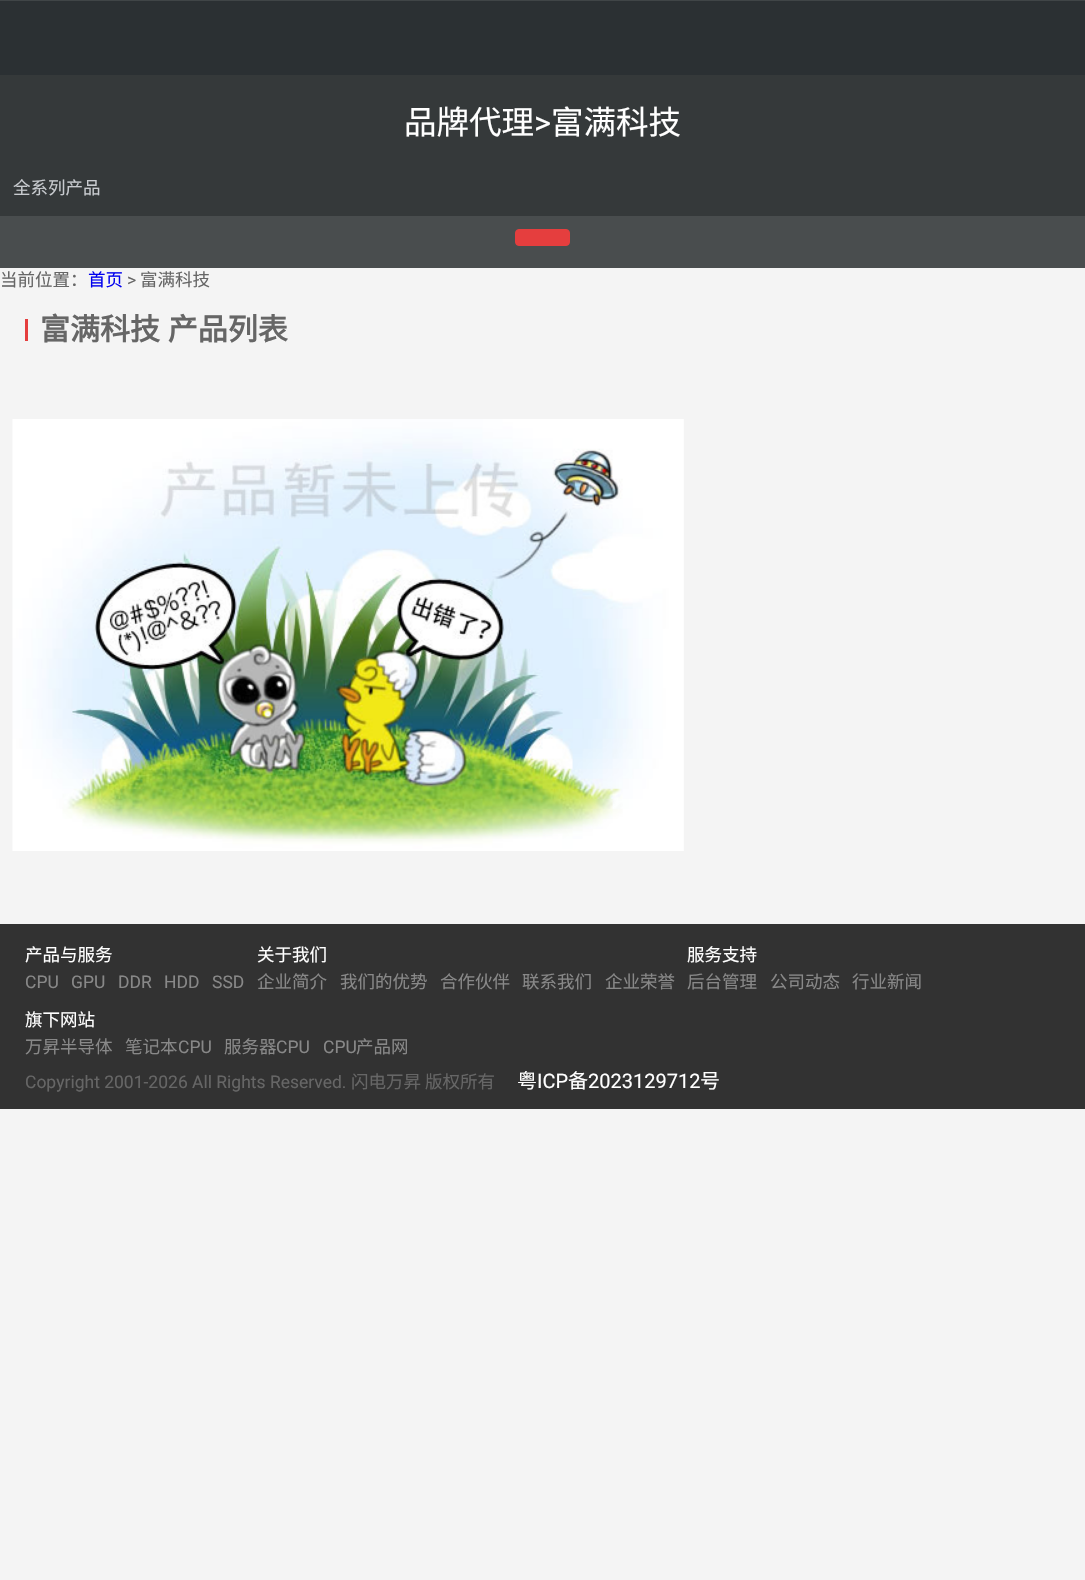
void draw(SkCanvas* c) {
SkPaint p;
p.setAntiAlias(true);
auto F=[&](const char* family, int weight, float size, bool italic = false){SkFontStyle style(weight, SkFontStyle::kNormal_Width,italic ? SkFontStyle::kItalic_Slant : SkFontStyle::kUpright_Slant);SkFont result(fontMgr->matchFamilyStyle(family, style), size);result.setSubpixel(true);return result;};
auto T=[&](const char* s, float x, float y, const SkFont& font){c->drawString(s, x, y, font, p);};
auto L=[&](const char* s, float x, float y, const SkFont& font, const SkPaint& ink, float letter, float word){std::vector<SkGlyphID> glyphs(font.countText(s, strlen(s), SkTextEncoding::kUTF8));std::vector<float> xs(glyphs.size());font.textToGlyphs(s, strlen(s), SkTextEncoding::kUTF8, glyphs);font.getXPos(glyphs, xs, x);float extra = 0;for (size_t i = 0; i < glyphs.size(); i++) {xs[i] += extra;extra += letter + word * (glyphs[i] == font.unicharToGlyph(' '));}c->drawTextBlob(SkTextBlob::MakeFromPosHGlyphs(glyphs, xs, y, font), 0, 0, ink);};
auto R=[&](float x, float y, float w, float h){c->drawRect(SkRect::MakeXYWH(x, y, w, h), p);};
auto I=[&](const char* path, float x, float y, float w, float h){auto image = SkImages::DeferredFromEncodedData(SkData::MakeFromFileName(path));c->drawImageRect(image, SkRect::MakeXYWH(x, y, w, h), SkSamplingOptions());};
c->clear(0xfff4f4f4);
p.setColor(0xff2b3033);
R(0,1,1085,74);
p.setColor(0xff404547);
R(0,0,1085,1);
p.setColor(0xff35393a);
R(0,75,1085,141);
auto f1 = F("Noto Sans CJK SC",400,32.5);
p.setColor(0xffffffff);
T("品牌代理",404,134,f1);
auto f2 = F("Roboto",400,32.5);
T(">",534,134,f2);
T("富满科技",551,134,f1);
auto f3 = F("Noto Sans CJK SC",400,17.5);
p.setColor(0xffc8cbcf);
T("全系列产品",13,194,f3);
p.setColor(0xff494d4e);
R(0,216,1085,52);
p.setColor(0xffe53e3e);
c->drawRoundRect(SkRect::MakeXYWH(515.5,229.5,54,16),3.5,3.5,p);
p.setStroke(true);
p.setStrokeWidth(1);
c->drawRoundRect(SkRect::MakeXYWH(515.5,229.5,54,16),3.5,3.5,p);
p.setStroke(false);
p.setColor(0xff666666);
T("当前位置：",0,286,f3);
p.setColor(0xff0000ee);
T("首页",88,286,f3);
auto f4 = F("Roboto",400,17.5);
p.setColor(0xff666666);
T(">",127,286,f4);
T("富满科技",140,286,f3);
p.setColor(0xffe53e3e);
R(25,319,3,22);
auto f5 = F("Noto Sans CJK SC",700,30);
p.setColor(0xff666666);
L("富满科技 产品列表",40,340,f5,p,0,1);
I("1.png",12,419,672,432);
p.setColor(0xff323232);
R(0,924,1085,185);
p.setColor(0xffffffff);
T("产品与服务",25,961,f3);
p.setColor(0xff888888);
T("CPU",25,988,f4);
T("GPU",71,988,f4);
T("DDR",118,988,f4);
T("HDD",164,988,f4);
T("SSD",212,988,f4);
p.setColor(0xffffffff);
T("关于我们",257,961,f3);
p.setColor(0xff888888);
T("企业简介",257,988,f3);
T("我们的优势",340,988,f3);
T("合作伙伴",440,988,f3);
T("联系我们",522,988,f3);
T("企业荣誉",605,988,f3);
p.setColor(0xffffffff);
T("服务支持",687,961,f3);
p.setColor(0xff888888);
T("后台管理",687,988,f3);
T("公司动态",770,988,f3);
T("行业新闻",852,988,f3);
p.setColor(0xffffffff);
T("旗下网站",25,1026,f3);
p.setColor(0xff888888);
T("万昇半导体",25,1053,f3);
T("笔记本",125,1053,f3);
T("CPU",178,1053,f4);
T("服务器",224,1053,f3);
T("CPU",276,1053,f4);
T("CPU",323,1053,f4);
T("产品网",356,1053,f3);
p.setColor(0xff666666);
T("Copyright 2001-2026 All Rights Reserved.",25,1088,f4);
T("闪电万昇",351,1088,f3);
T("版权所有",425,1088,f3);
auto f6 = F("Noto Sans CJK SC",400,20);
p.setColor(0xffffffff);
T("粤",517,1088,f6);
auto f7 = F("Roboto",400,20);
T("ICP",537,1088,f7);
T("备",568,1088,f6);
T("2023129712",588,1088,f7);
T("号",700,1088,f6);
}
